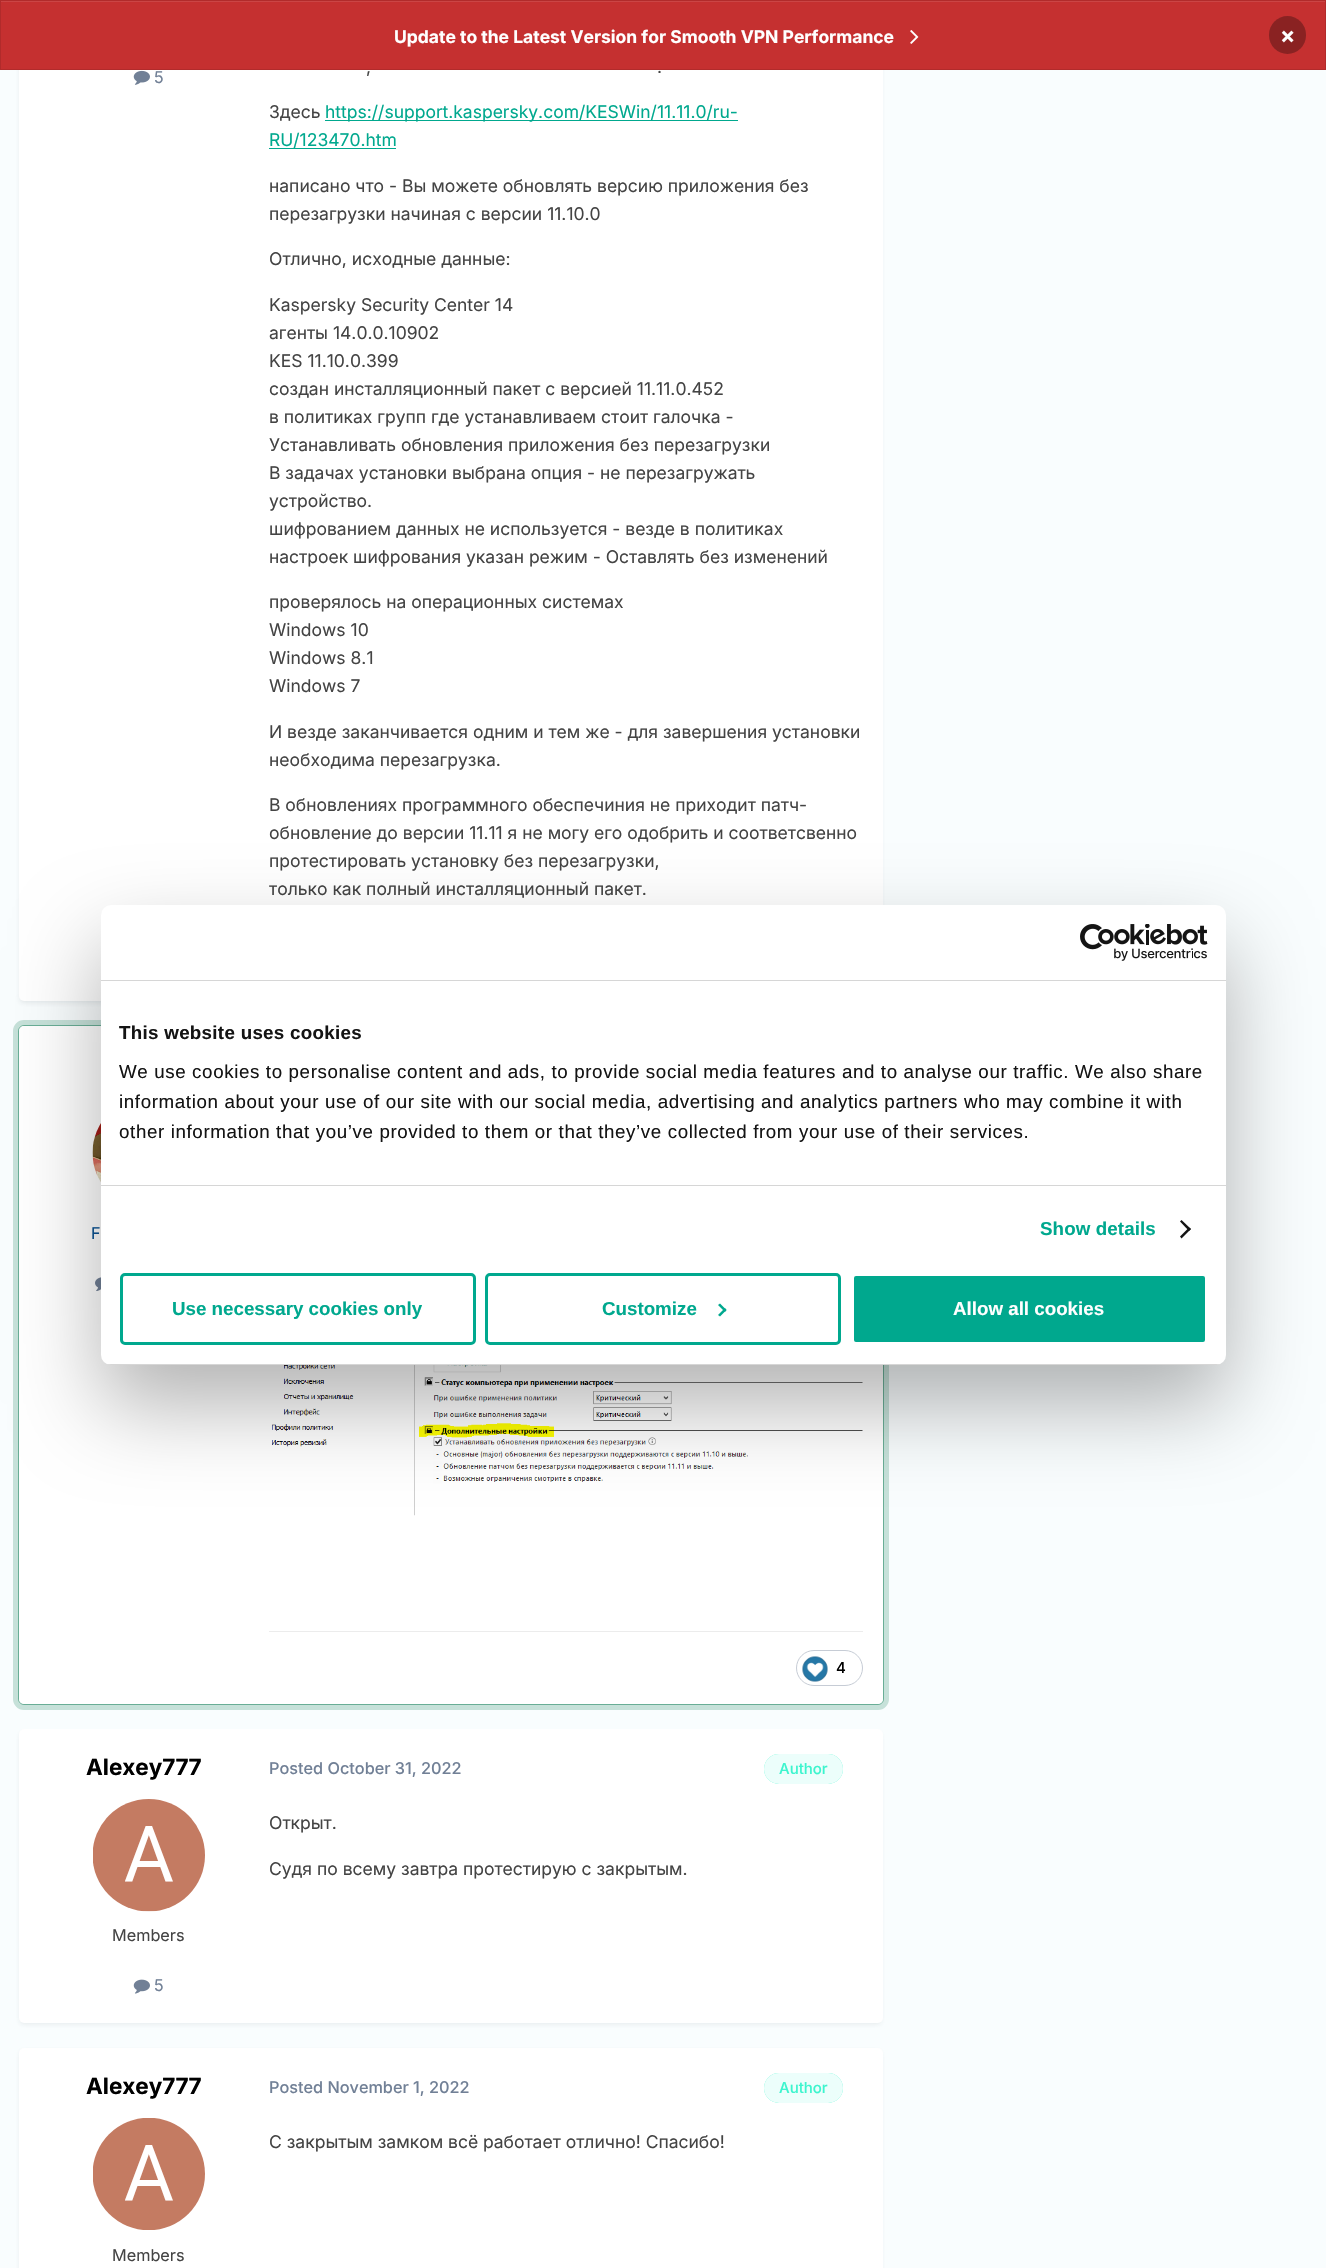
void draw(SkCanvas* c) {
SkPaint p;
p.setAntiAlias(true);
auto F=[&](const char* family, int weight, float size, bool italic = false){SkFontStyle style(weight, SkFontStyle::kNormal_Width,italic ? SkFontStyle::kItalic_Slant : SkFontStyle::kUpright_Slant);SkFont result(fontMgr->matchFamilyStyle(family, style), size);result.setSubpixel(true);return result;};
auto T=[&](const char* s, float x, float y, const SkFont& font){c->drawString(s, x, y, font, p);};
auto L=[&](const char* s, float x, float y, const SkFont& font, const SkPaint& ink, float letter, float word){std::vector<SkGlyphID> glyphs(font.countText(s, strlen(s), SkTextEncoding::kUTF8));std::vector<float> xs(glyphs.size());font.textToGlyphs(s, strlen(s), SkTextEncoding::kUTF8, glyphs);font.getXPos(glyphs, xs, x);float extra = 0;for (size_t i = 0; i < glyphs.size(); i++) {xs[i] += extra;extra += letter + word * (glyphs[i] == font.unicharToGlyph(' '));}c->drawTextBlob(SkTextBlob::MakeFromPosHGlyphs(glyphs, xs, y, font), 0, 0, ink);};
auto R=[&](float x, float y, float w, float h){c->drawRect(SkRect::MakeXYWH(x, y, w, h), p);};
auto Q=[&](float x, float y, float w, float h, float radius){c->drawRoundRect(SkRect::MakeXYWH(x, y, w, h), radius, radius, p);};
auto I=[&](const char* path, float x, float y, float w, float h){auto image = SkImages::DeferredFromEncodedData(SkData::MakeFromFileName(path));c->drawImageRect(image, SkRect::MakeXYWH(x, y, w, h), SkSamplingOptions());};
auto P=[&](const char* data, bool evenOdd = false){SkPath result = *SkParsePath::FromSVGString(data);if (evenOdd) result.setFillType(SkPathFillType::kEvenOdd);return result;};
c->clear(0xfff9fdfe);
p.setColor(0x1a2d3748);
p.setMaskFilter(SkMaskFilter::MakeBlur(kNormal_SkBlurStyle, 2.5));
c->drawRoundRect(SkRect::MakeXYWH(20,-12,861,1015),4,4,p);
p.setMaskFilter(nullptr);
p.setColor(0xffffffff);
Q(19,-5,864,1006,5);
p.setColor(0xffc53030);
R(1,2,1324,67);
p.setColor(0xffcb4545);
R(1,1,1324,1);
p.setStroke(true);
p.setStrokeWidth(1);
p.setColor(0xffb12b2b);
c->drawRect(SkRect::MakeXYWH(.5,.5,1325,69),p);
auto f1 = F("Inter",700,17.5);
p.setStroke(false);
p.setColor(0xffffffff);
T("Update to the Latest Version for Smooth VPN Performance",394,43,f1);
I("1.png",910,30,9,14);
p.setColor(0xff8a2222);
Q(1269,16,37,38,18.5);
auto f2 = F("Inter",700,22.5);
p.setColor(0xffffffff);
T("×",1280,43,f2);
I("2.png",133,70,17,15);
auto f3 = F("Inter",400,16.25);
p.setColor(0xff718096);
T("5",154,83,f3);
auto f4 = F("Inter",400,17.5);
p.setColor(0xff444444);
T(",",366,73,f4);
T(".",657,73,f4);
T("Здесь",269,118,f4);
p.setColor(0xff00a88e);
R(325,120,413,1);
T("https://support.kaspersky.com/KESWin/11.11.0/ru-",325,118,f4);
T("RU/123470.htm",269,146,f4);
R(269,148,127,1);
p.setColor(0xff444444);
T("написано что - Вы можете обновлять версию приложения без",269,192,f4);
T("перезагрузки начиная с версии 11.10.0",269,220,f4);
T("Отлично, исходные данные:",269,265,f4);
T("Kaspersky Security Center 14",269,311,f4);
T("агенты 14.0.0.10902",269,339,f4);
T("KES 11.10.0.399",269,367,f4);
T("создан инсталляционный пакет с версией 11.11.0.452",269,395,f4);
T("в политиках групп где устанавливаем стоит галочка -",269,423,f4);
T("Устанавливать обновления приложения без перезагрузки",269,451,f4);
T("В задачах установки выбрана опция - не перезагружать",269,479,f4);
T("устройство.",269,507,f4);
T("шифрованием данных не используется - везде в политиках",269,535,f4);
T("настроек шифрования указан режим - Оставлять без изменений",269,563,f4);
T("проверялось на операционных системах",269,608,f4);
T("Windows 10",269,636,f4);
T("Windows 8.1",269,664,f4);
T("Windows 7",269,692,f4);
T("И везде заканчивается одним и тем же - для завершения установки",269,738,f4);
T("необходима перезагрузка.",269,766,f4);
T("В обновлениях программного обеспечиния не приходит патч-",269,811,f4);
T("обновление до версии 11.11 я не могу его одобрить и соответсвенно",269,839,f4);
T("протестировать установку без перезагрузки,",269,867,f4);
T("только как полный инсталляционный пакет.",269,895,f4);
p.setStroke(true);
p.setStrokeWidth(6);
p.setColor(0xffc6e1d9);
c->drawRoundRect(SkRect::MakeXYWH(16,1023,870,684),8,8,p);
p.setStrokeWidth(1);
p.setColor(0x992c8c69);
c->drawRoundRect(SkRect::MakeXYWH(18.5,1025.5,865,679),5.5,5.5,p);
p.setStroke(false);
p.setColor(0xffffffff);
Q(19,1026,864,678,5);
I("3.png",92,1123,9,60);
p.setColor(0xff0b5394);
T("F",91,1239,f3);
I("4.png",95,1277,6,14);
I("5.png",268,1365,595,151);
p.setColor(0xffececec);
R(269,1631,594,1);
p.setStroke(true);
p.setColor(0xffc6ccd5);
c->drawRoundRect(SkRect::MakeXYWH(796.5,1650.5,66,35),17.5,17.5,p);
I("6.png",802,1656,26,26);
auto f5 = F("Inter",500,15);
p.setStroke(false);
p.setColor(0xff000000);
T("4",836,1673,f5);
p.setColor(0x1a2d3748);
p.setMaskFilter(SkMaskFilter::MakeBlur(kNormal_SkBlurStyle, 2.5));
c->drawRoundRect(SkRect::MakeXYWH(20,1733,861,291),4,4,p);
p.setMaskFilter(nullptr);
p.setColor(0xffffffff);
Q(19,1729,864,294,5);
p.setColor(0xff000000);
T("Alexey777",86,1775,f2);
I("7.png",93,1799,112,113);
p.setColor(0xff444444);
T("Members",112,1941,f3);
I("8.png",133,1979,17,15);
p.setColor(0xff718096);
T("5",154,1991,f3);
auto f6 = F("Inter",500,16.25);
T("Posted October 31, 2022",269,1774,f6);
p.setColor(0xff3cf5ce);
Q(764,1754,79,30,15);
p.setColor(0xe6ffffff);
Q(764,1754,79,30,15);
p.setColor(0xff3cf5ce);
T("Author",779,1774,f5);
p.setColor(0xff444444);
T("Открыт.",269,1829,f4);
T("Судя по всему завтра протестирую с закрытым.",269,1875,f4);
p.setColor(0x1a2d3748);
p.setMaskFilter(SkMaskFilter::MakeBlur(kNormal_SkBlurStyle, 2.5));
c->drawRoundRect(SkRect::MakeXYWH(20,2051,861,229),4,4,p);
p.setMaskFilter(nullptr);
p.setColor(0xffffffff);
Q(19,2048,864,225,5);
p.setColor(0xff000000);
T("Alexey777",86,2094,f2);
I("9.png",93,2118,112,112);
p.setColor(0xff444444);
T("Members",112,2261,f3);
p.setColor(0xff718096);
T("Posted November 1, 2022",269,2093,f6);
p.setColor(0xff3cf5ce);
Q(764,2073,79,30,15);
p.setColor(0xe6ffffff);
Q(764,2073,79,30,15);
p.setColor(0xff3cf5ce);
T("Author",779,2093,f5);
p.setColor(0xff444444);
T("С закрытым замком всё работает отлично! Спасибо!",269,2148,f4);
p.setColor(0x4d000000);
p.setMaskFilter(SkMaskFilter::MakeBlur(kNormal_SkBlurStyle, 42.5));
c->drawRoundRect(SkRect::MakeXYWH(101,945,1125,460),10,10,p);
p.setMaskFilter(nullptr);
p.setColor(0xffffffff);
Q(101,905,1125,460,10);
p.setColor(0xffd6d6d6);
R(101,980,1125,1);
I("10.png",1080,924,128,37);
R(101,1185,1125,1);
auto f7 = F("Liberation Sans",700,18.75);
p.setColor(0xff141414);
L("This website uses cookies",119,1039,f7,p,.3,0);
auto f8 = F("Liberation Sans",400,18.75);
L("We use cookies to personalise content and ads, to provide social media features and to analyse our traffic. We also share",119,1078,f8,p,.62,0);
L("information about your use of our site with our social media, advertising and analytics partners who may combine it with",119,1108,f8,p,.62,0);
L("other information that you’ve provided to them or that they’ve collected from your use of their services.",119,1138,f8,p,.62,0);
p.setColor(0xff00a88e);
L("Show details",1040,1235,f7,p,.1,0);
p.setColor(0xff141414);
c->drawPath(P("M1181.5 1220l9.5 9l-2 2l-9-9.5z"),p);
c->drawPath(P("M1189 1227.5l2 1.5l-9.5 9.5l-1.5-2z"),p);
c->save();
c->clipPath(P("M111 905h1105c5.5 0 10 4.5 10 10v440c0 5.5-4.5 10-10 10h-1105c-5.5 0-10-4.5-10-10v-440c0-5.5 4.5-10 10-10z"),true);
p.setColor(0xffd6d6d6);
R(101,1364,1125,1);
c->restore();
p.setStroke(true);
p.setStrokeWidth(3);
p.setColor(0xff00a88e);
c->drawRoundRect(SkRect::MakeXYWH(121.5,1274.5,353,69),3.5,3.5,p);
p.setStroke(false);
T("Use necessary cookies only",172,1315,f7);
p.setStroke(true);
c->drawRoundRect(SkRect::MakeXYWH(486.5,1274.5,353,69),3.5,3.5,p);
p.setStroke(false);
T("Customize",602,1315,f7);
c->drawPath(P("M720 1303.5l6.5 6.5l-1.5 2l-7-7z"),p);
c->drawPath(P("M725 1308l1.5 2l-6.5 6.5l-2-1.5z"),p);
c->drawRoundRect(SkRect::MakeXYWH(852.5,1274.5,354,69),3.5,3.5,p);
p.setStroke(true);
p.setColor(0xffffffff);
c->drawRoundRect(SkRect::MakeXYWH(852.5,1274.5,354,69),3.5,3.5,p);
p.setStroke(false);
T("Allow all cookies",953,1315,f7);
}
